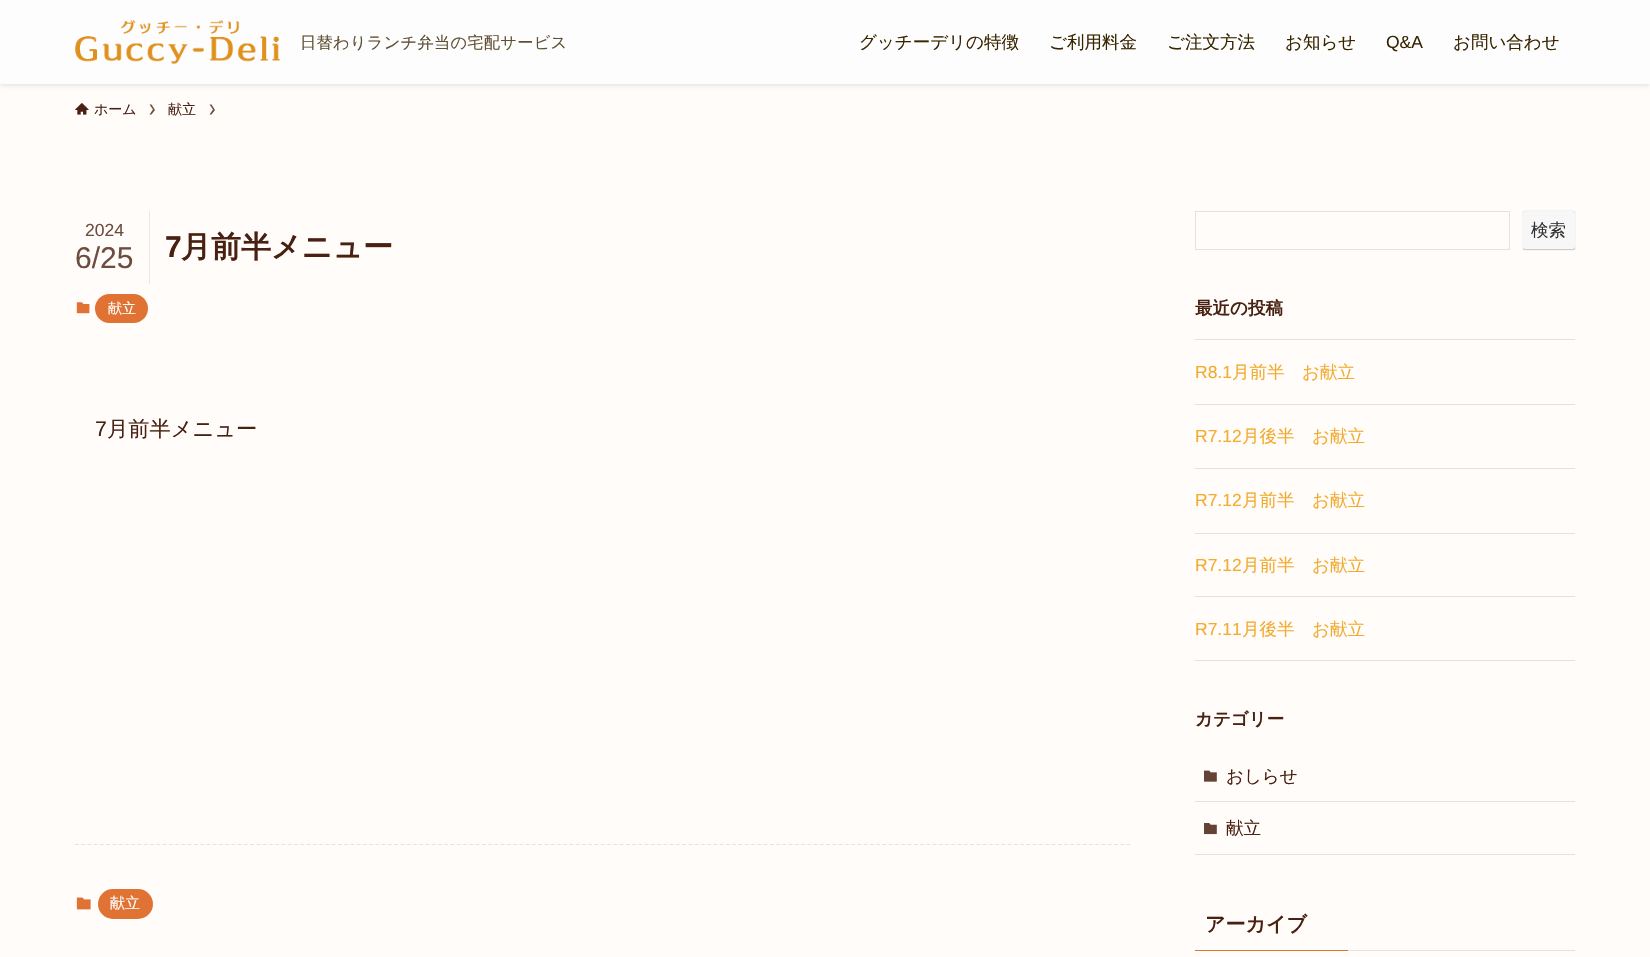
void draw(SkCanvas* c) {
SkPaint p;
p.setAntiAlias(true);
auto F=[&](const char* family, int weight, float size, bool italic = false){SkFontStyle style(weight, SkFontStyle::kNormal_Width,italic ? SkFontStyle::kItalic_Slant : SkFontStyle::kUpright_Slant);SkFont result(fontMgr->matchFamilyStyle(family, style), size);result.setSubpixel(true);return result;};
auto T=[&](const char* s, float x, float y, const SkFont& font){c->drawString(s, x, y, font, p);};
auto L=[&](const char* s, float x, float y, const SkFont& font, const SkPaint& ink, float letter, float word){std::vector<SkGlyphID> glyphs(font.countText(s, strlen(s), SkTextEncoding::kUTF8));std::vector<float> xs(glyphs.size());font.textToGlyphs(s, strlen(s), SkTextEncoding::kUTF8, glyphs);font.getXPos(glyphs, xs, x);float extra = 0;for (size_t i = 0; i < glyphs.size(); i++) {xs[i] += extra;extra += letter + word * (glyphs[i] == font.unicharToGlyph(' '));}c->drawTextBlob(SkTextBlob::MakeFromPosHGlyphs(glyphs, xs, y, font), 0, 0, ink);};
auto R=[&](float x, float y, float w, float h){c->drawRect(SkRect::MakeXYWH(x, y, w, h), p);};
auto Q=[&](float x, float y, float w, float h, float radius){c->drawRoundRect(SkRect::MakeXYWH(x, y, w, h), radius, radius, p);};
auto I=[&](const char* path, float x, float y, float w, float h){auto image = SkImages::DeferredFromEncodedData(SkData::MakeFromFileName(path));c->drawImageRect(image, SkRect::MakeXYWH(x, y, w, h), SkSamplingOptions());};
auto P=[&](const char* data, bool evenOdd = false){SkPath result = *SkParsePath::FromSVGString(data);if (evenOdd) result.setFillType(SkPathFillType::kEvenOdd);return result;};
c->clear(0xfffffcf9);
p.setColor(0x1f000000);
p.setMaskFilter(SkMaskFilter::MakeBlur(kNormal_SkBlurStyle, 2.5));
c->drawRect(SkRect::MakeXYWH(0,1,1650,84),p);
p.setMaskFilter(nullptr);
p.setColor(0xfffdfdfd);
R(0,0,1650,84);
I("1.png",75,20,205,44);
auto f1 = F("WenQuanYi Zen Hei",500,16.25);
p.setColor(0xff5f5033);
L("日替わりランチ弁当の宅配サービス",300,48,f1,p,.25,0);
auto f2 = F("WenQuanYi Zen Hei",500,17.5);
p.setColor(0xff382500);
T("グッチーデリの特徴",859,48,f2);
T("ご利用料金",1049,48,f2);
T("ご注文方法",1167,48,f2);
T("お知らせ",1285,48,f2);
auto f3 = F("Liberation Sans",400,17.5);
T("Q&A",1386,48,f3);
T("お問い合わせ",1453,48,f2);
I("2.png",75,102,14,13);
auto f4 = F("WenQuanYi Zen Hei",500,14);
p.setColor(0xff492112);
T("ホーム",94,114,f4);
p.setColor(0xff6d4d40);
c->drawPath(P("M151.5 104.5h-2l3.5 5l-3.5 5h2l3.5-4.5z"),p);
p.setColor(0xff492112);
T("献立",168,114,f4);
p.setColor(0xff6d4d40);
c->drawPath(P("M211.5 104.5h-2l3.5 5l-3.5 5h2l3.5-4.5z"),p);
p.setColor(0xffe9e7e5);
R(149,211,1,73);
p.setColor(0xff6d4d40);
T("2024",85,236,f3);
auto f5 = F("Liberation Sans",400,30);
T("6/25",75,268,f5);
auto f6 = F("Liberation Sans",700,30);
p.setColor(0xff492112);
T("7",165,257,f6);
auto f7 = F("WenQuanYi Zen Hei",700,30);
T("月前半メニュー",181,257,f7);
I("3.png",76,302,14,12);
p.setColor(0xffe07233);
Q(95,294,53,29,14.5);
p.setColor(0xffffffff);
T("献立",108,313,f4);
auto f8 = F("Liberation Sans",400,21.25);
p.setColor(0xff492112);
T("7",95,436,f8);
auto f9 = F("WenQuanYi Zen Hei",500,21.25);
T("月前半メニュー",107,436,f9);
p.setStroke(true);
p.setStrokeWidth(1.2);
p.setColor(0xffe3e2e0);
p.setPathEffect(SkDashPathEffect::Make({{3.75f,2.51f}}, 0));
c->drawPath(P("M75 844.5h1055"),p);
p.setPathEffect(nullptr);
I("4.png",76,897,15,13);
p.setStroke(false);
p.setColor(0xffe07233);
Q(98,889,55,30,15);
auto f10 = F("WenQuanYi Zen Hei",500,15);
p.setColor(0xffffffff);
T("献立",110,908,f10);
p.setStroke(true);
p.setStrokeWidth(1);
p.setColor(0xffe3e2e0);
c->drawRect(SkRect::MakeXYWH(1195.5,211.5,314,38),p);
p.setStroke(false);
p.setColor(0xffaaaaaa);
p.setMaskFilter(SkMaskFilter::MakeBlur(kNormal_SkBlurStyle, .5));
c->drawRoundRect(SkRect::MakeXYWH(1523,211,52,39),2.5,2.5,p);
p.setMaskFilter(nullptr);
p.setColor(0xfff7f7f7);
Q(1523,211,52,39,2.5);
p.setColor(0xffcccccc);
c->drawPath(P("M1523 248c0 1 1 2 3 2h46c2 0 3-1 3-2v-2c0 2-1 3-3 3h-47z"),p);
p.setColor(0xff333333);
T("検索",1531,236,f2);
auto f11 = F("WenQuanYi Zen Hei",700,17.5);
p.setColor(0xff492112);
T("最近の投稿",1195,314,f11);
p.setColor(0xffe3e2e0);
R(1195,339,380,1);
R(1195,404,380,1);
p.setColor(0xfff2ab30);
T("R8.1",1195,378,f3);
T("月前半　お献立",1232,378,f2);
p.setColor(0xffe3e2e0);
R(1195,468,380,1);
p.setColor(0xfff2ab30);
T("R7.12",1195,442,f3);
T("月後半　お献立",1242,442,f2);
p.setColor(0xffe3e2e0);
R(1195,533,380,1);
p.setColor(0xfff2ab30);
T("R7.12",1195,506,f3);
T("月前半　お献立",1242,506,f2);
p.setColor(0xffe3e2e0);
R(1195,596,380,1);
p.setColor(0xfff2ab30);
T("R7.12",1195,571,f3);
T("月前半　お献立",1242,571,f2);
p.setColor(0xffe3e2e0);
R(1195,660,380,1);
p.setColor(0xfff2ab30);
T("R7.11",1195,635,f3);
T("月後半　お献立",1242,635,f2);
p.setColor(0xff492112);
T("カテゴリー",1195,725,f11);
p.setColor(0xffe3e2e0);
R(1195,801,380,1);
I("5.png",1204,770,13,12);
p.setColor(0xff492112);
T("おしらせ",1226,782,f2);
p.setColor(0xffe3e2e0);
R(1195,854,380,1);
I("6.png",1204,823,13,12);
p.setColor(0xff492112);
T("献立",1226,834,f2);
auto f12 = F("WenQuanYi Zen Hei",700,20);
T("アーカイブ",1205,931,f12);
p.setColor(0xffe07233);
R(1195,950,153,1);
p.setColor(0xffe3e2e0);
R(1348,950,227,1);
}
